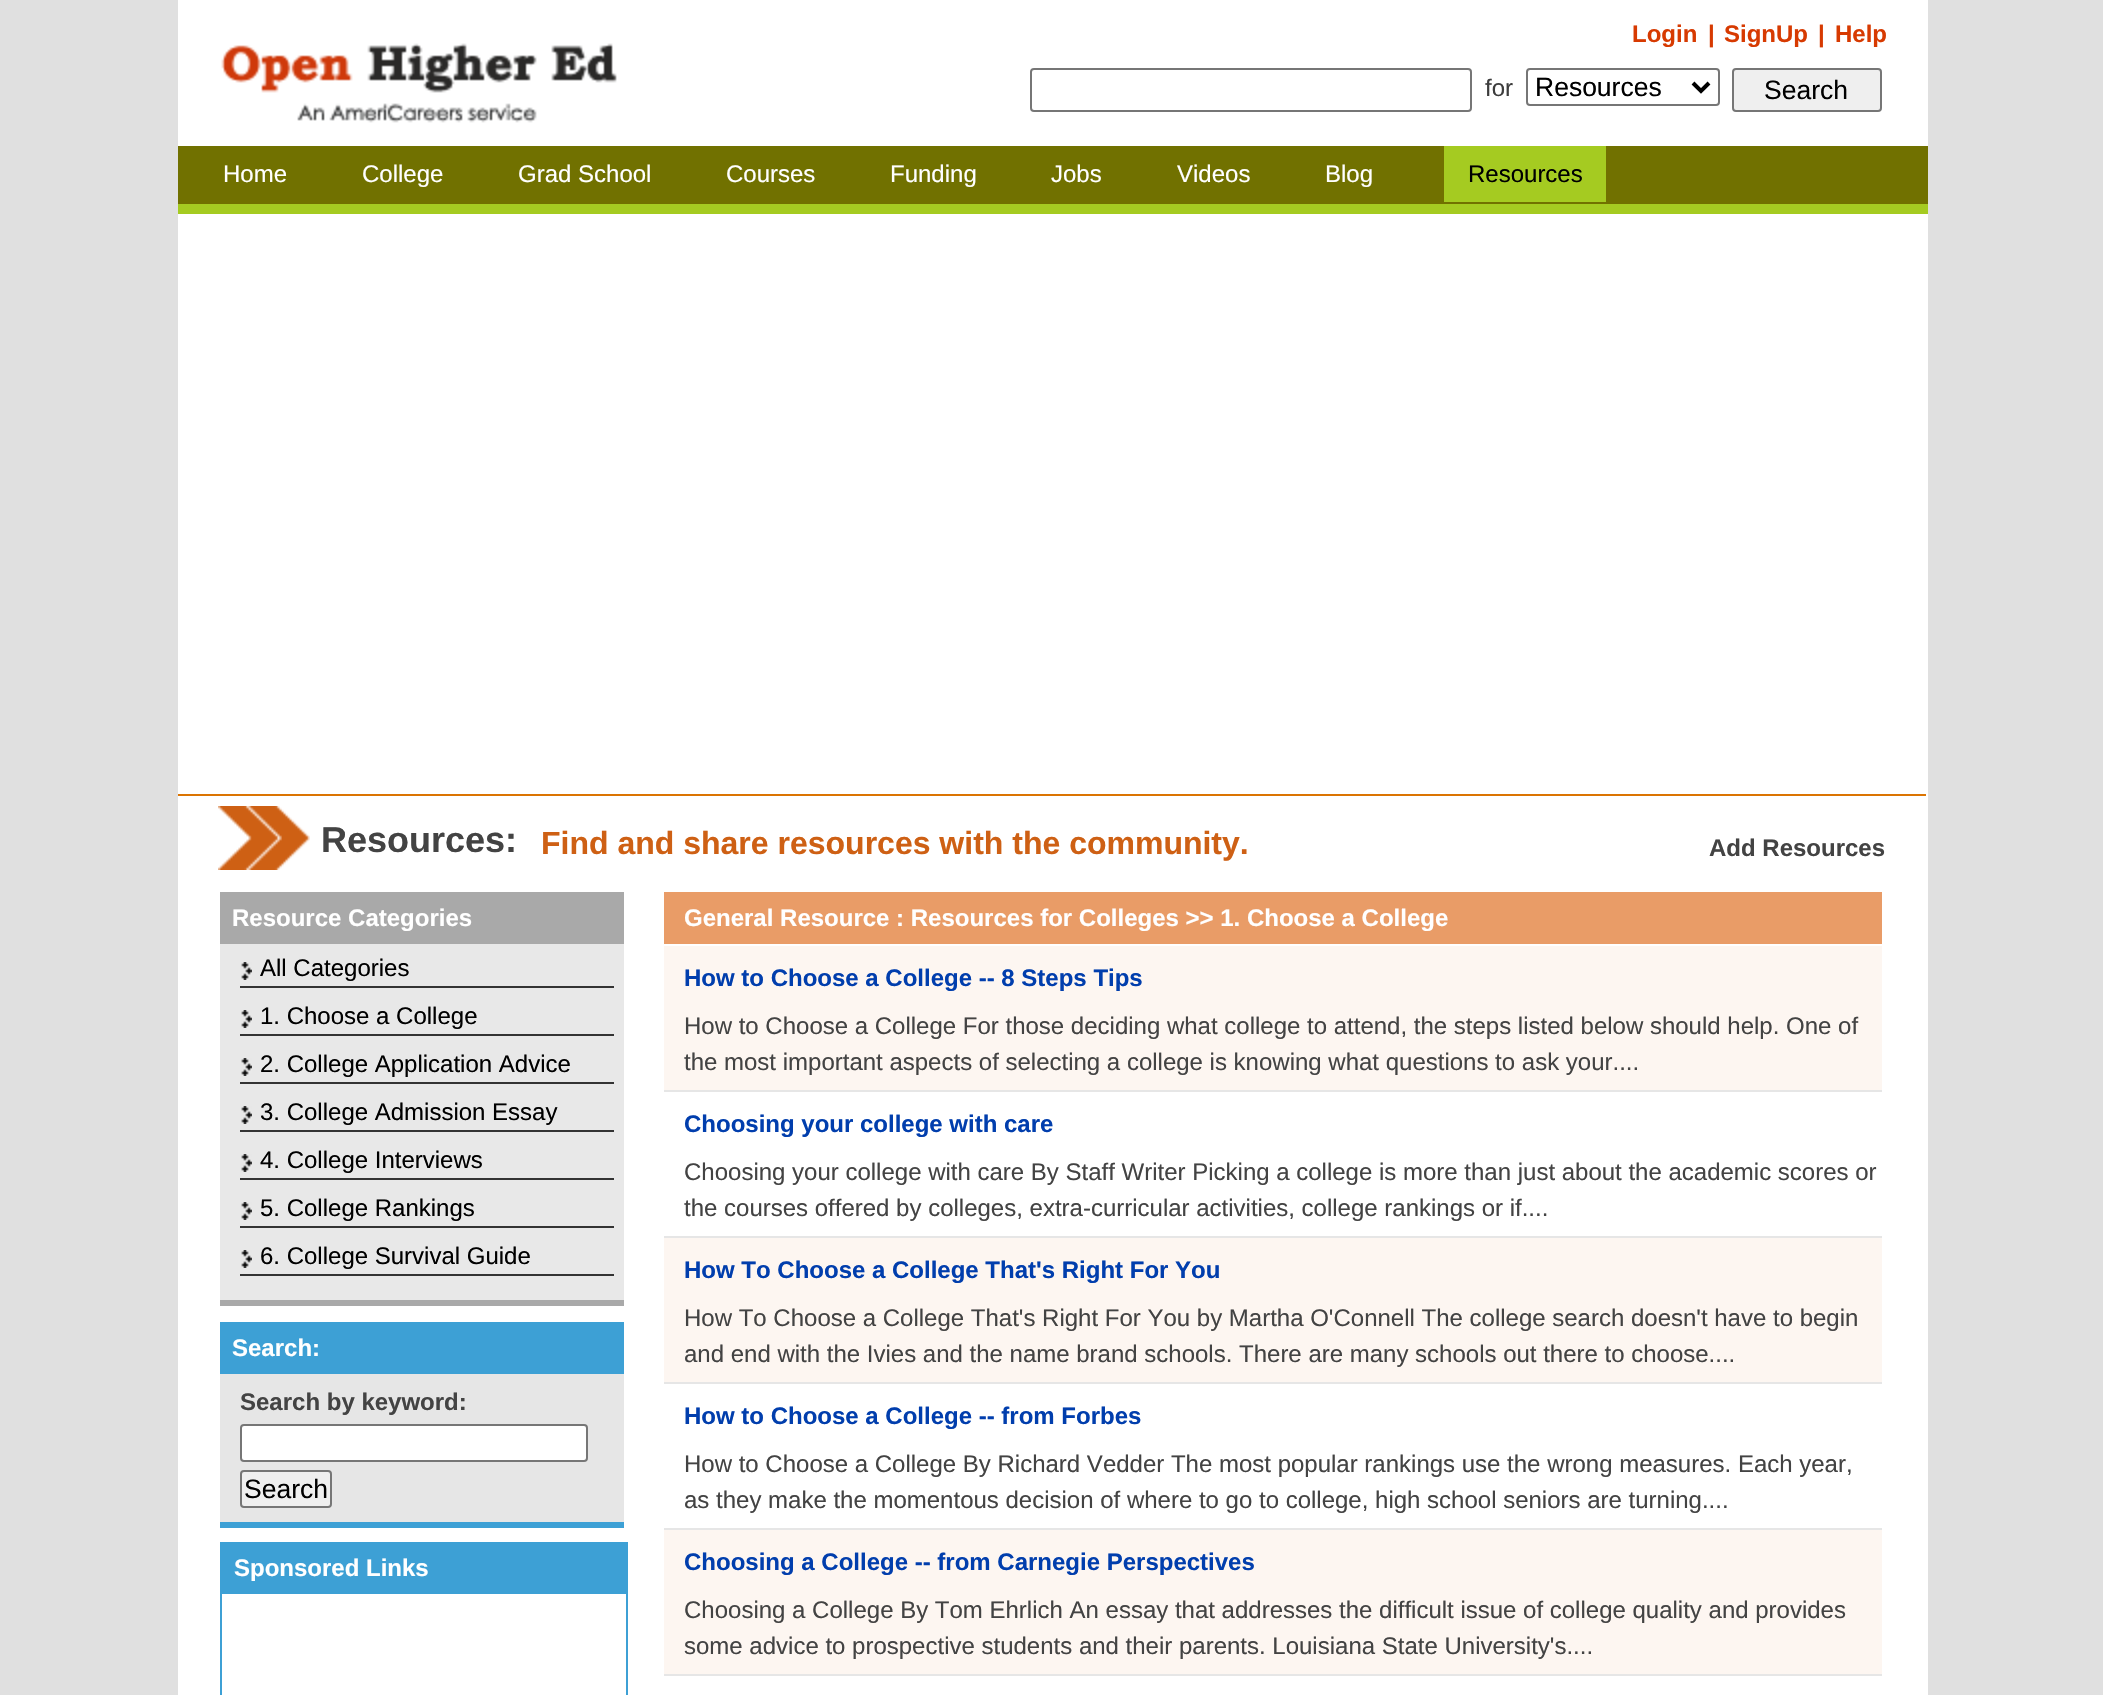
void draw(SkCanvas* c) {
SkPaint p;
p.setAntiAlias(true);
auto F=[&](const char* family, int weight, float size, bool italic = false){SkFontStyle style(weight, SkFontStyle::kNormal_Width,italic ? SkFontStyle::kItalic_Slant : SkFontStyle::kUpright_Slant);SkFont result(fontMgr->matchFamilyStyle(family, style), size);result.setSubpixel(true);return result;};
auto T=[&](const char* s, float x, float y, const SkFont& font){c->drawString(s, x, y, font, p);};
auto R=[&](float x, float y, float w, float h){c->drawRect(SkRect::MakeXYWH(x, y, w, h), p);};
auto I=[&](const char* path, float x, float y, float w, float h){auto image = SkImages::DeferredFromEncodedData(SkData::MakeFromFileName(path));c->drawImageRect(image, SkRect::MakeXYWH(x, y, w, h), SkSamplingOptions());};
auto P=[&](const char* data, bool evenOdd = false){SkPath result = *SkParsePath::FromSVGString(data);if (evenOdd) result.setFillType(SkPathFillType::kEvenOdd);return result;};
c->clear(0xffe0e0e0);
p.setColor(0xffffffff);
R(178,0,1750,1695);
auto f1 = F("Liberation Sans",700,24);
p.setColor(0xffd73a01);
T("Login",1632,42,f1);
T("|",1708,42,f1);
T("SignUp",1724,42,f1);
T("|",1818,42,f1);
T("Help",1835,42,f1);
I("1.png",221,43,396,80);
p.setStroke(true);
p.setStrokeWidth(2);
p.setColor(0xff767676);
c->drawRoundRect(SkRect::MakeXYWH(1031,69,440,42),3,3,p);
auto f2 = F("Liberation Sans",400,24);
p.setStroke(false);
p.setColor(0xff3d3d3d);
T("for",1485,96,f2);
p.setStroke(true);
p.setColor(0xff767676);
c->drawRoundRect(SkRect::MakeXYWH(1527,69,192,36),3,3,p);
p.setStrokeWidth(4);
p.setColor(0xff000000);
c->drawPath(P("M1693 83l8 8l8-8"),p);
auto f3 = F("Liberation Sans",400,26.5);
p.setStroke(false);
T("Resources",1535,96,f3);
p.setColor(0xffefefef);
c->drawRoundRect(SkRect::MakeXYWH(1733,69,148,42),3,3,p);
p.setStroke(true);
p.setStrokeWidth(2);
p.setColor(0xff767676);
c->drawRoundRect(SkRect::MakeXYWH(1733,69,148,42),3,3,p);
p.setStroke(false);
p.setColor(0xff000000);
T("Search",1764,99,f3);
p.setColor(0xff717100);
R(178,146,1750,58);
p.setColor(0xffa5cb21);
R(178,204,1750,10);
p.setColor(0xffffffff);
T("Home",223,182,f2);
T("College",362,182,f2);
T("Grad School",518,182,f2);
T("Courses",726,182,f2);
T("Funding",890,182,f2);
T("Jobs",1051,182,f2);
T("Videos",1177,182,f2);
T("Blog",1325,182,f2);
p.setColor(0xffa5cb21);
R(1444,146,162,56);
p.setColor(0xff000000);
T("Resources",1468,182,f2);
p.setColor(0xffdb7402);
R(178,794,1748,2);
I("2.png",218,806,92,64);
auto f4 = F("Liberation Sans",700,36);
p.setColor(0xff434343);
T("Resources:",321,852,f4);
auto f5 = F("Liberation Sans",700,32);
p.setColor(0xffce6014);
T("Find and share resources with the community.",541,854,f5);
p.setColor(0xff434343);
T("Add Resources",1709,856,f1);
p.setColor(0xffa9a9a9);
R(220,1300,404,6);
R(220,892,404,52);
p.setColor(0xffffffff);
T("Resource Categories",232,926,f1);
p.setColor(0xffe8e8e8);
R(220,944,404,356);
I("3.png",241,962,11,18);
p.setColor(0xff333333);
R(240,986,374,2);
p.setColor(0xff000000);
T("All Categories",260,976,f2);
I("3.png",241,1010,11,18);
p.setColor(0xff333333);
R(240,1034,374,2);
p.setColor(0xff000000);
T("1. Choose a College",260,1024,f2);
I("3.png",241,1058,11,18);
p.setColor(0xff333333);
R(240,1082,374,2);
p.setColor(0xff000000);
T("2. College Application Advice",260,1072,f2);
I("3.png",241,1106,11,18);
p.setColor(0xff333333);
R(240,1130,374,2);
p.setColor(0xff000000);
T("3. College Admission Essay",260,1120,f2);
I("3.png",241,1154,11,18);
p.setColor(0xff333333);
R(240,1178,374,2);
p.setColor(0xff000000);
T("4. College Interviews",260,1168,f2);
I("3.png",241,1202,11,18);
p.setColor(0xff333333);
R(240,1226,374,2);
p.setColor(0xff000000);
T("5. College Rankings",260,1216,f2);
I("3.png",241,1250,11,18);
p.setColor(0xff333333);
R(240,1274,374,2);
p.setColor(0xff000000);
T("6. College Survival Guide",260,1264,f2);
p.setColor(0xffe6e6e6);
R(220,1374,404,148);
p.setColor(0xff3da0d5);
R(220,1522,404,6);
R(220,1322,404,52);
p.setColor(0xffffffff);
T("Search:",232,1356,f1);
p.setColor(0xff434343);
T("Search by keyword:",240,1410,f1);
p.setColor(0xffffffff);
c->drawRoundRect(SkRect::MakeXYWH(241,1425,346,36),3,3,p);
p.setStroke(true);
p.setColor(0xff767676);
c->drawRoundRect(SkRect::MakeXYWH(241,1425,346,36),3,3,p);
p.setStroke(false);
p.setColor(0xffefefef);
c->drawRoundRect(SkRect::MakeXYWH(241,1471,90,36),3,3,p);
p.setStroke(true);
p.setColor(0xff767676);
c->drawRoundRect(SkRect::MakeXYWH(241,1471,90,36),3,3,p);
p.setStroke(false);
p.setColor(0xff000000);
T("Search",244,1498,f3);
p.setColor(0xff3da0d5);
R(626,1542,2,153);
R(220,1542,2,153);
R(222,1542,404,52);
p.setColor(0xffffffff);
T("Sponsored Links",234,1576,f1);
p.setColor(0xffe99c67);
R(664,892,1218,52);
p.setColor(0xffffffff);
T("General Resource : Resources for Colleges >> 1. Choose a College",684,926,f1);
p.setColor(0xfffdf6f1);
R(664,946,1218,144);
p.setColor(0xffe6e6e6);
R(664,1090,1218,2);
p.setColor(0xff013ead);
T("How to Choose a College -- 8 Steps Tips",684,986,f1);
p.setColor(0xff434343);
T("How to Choose a College For those deciding what college to attend, the steps listed below should help. One of",684,1034,f2);
T("the most important aspects of selecting a college is knowing what questions to ask your....",684,1070,f2);
p.setColor(0xffe6e6e6);
R(664,1236,1218,2);
p.setColor(0xff013ead);
T("Choosing your college with care",684,1132,f1);
p.setColor(0xff434343);
T("Choosing your college with care By Staff Writer Picking a college is more than just about the academic scores or",684,1180,f2);
T("the courses offered by colleges, extra-curricular activities, college rankings or if....",684,1216,f2);
p.setColor(0xfffdf6f1);
R(664,1238,1218,144);
p.setColor(0xffe6e6e6);
R(664,1382,1218,2);
p.setColor(0xff013ead);
T("How To Choose a College That's Right For You",684,1278,f1);
p.setColor(0xff434343);
T("How To Choose a College That's Right For You by Martha O'Connell The college search doesn't have to begin",684,1326,f2);
T("and end with the Ivies and the name brand schools. There are many schools out there to choose....",684,1362,f2);
p.setColor(0xffe6e6e6);
R(664,1528,1218,2);
p.setColor(0xff013ead);
T("How to Choose a College -- from Forbes",684,1424,f1);
p.setColor(0xff434343);
T("How to Choose a College By Richard Vedder The most popular rankings use the wrong measures. Each year,",684,1472,f2);
T("as they make the momentous decision of where to go to college, high school seniors are turning....",684,1508,f2);
p.setColor(0xfffdf6f1);
R(664,1530,1218,144);
p.setColor(0xffe6e6e6);
R(664,1674,1218,2);
p.setColor(0xff013ead);
T("Choosing a College -- from Carnegie Perspectives",684,1570,f1);
p.setColor(0xff434343);
T("Choosing a College By Tom Ehrlich An essay that addresses the difficult issue of college quality and provides",684,1618,f2);
T("some advice to prospective students and their parents. Louisiana State University's....",684,1654,f2);
}
